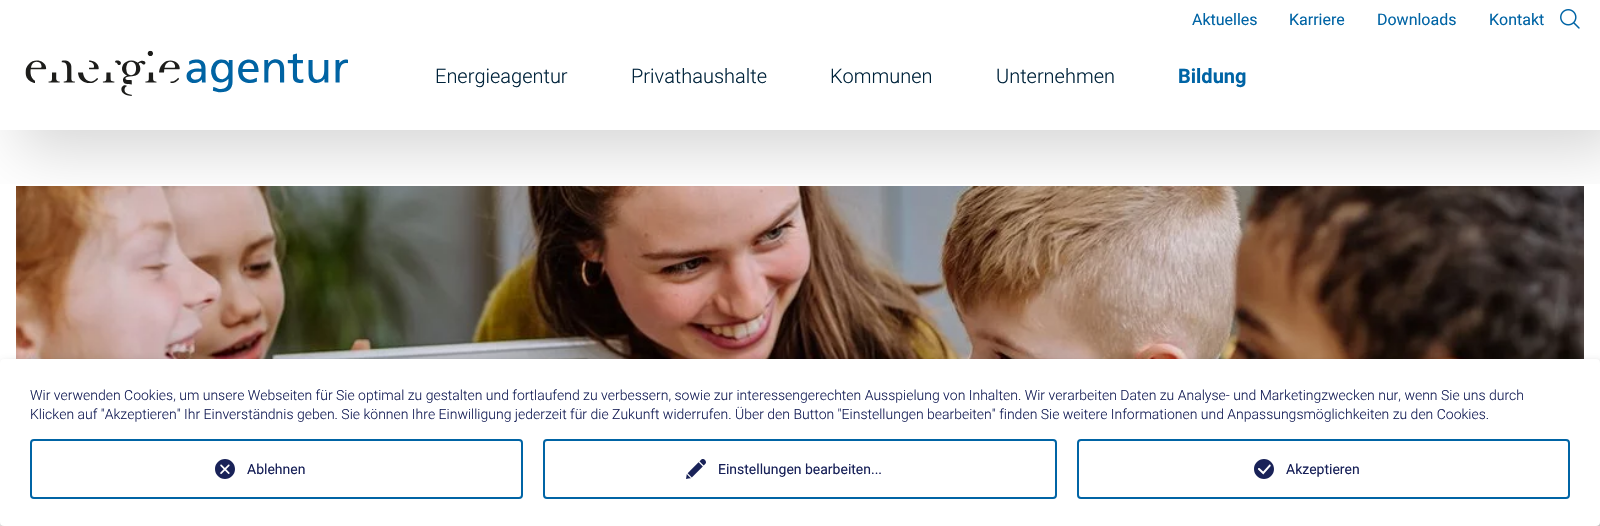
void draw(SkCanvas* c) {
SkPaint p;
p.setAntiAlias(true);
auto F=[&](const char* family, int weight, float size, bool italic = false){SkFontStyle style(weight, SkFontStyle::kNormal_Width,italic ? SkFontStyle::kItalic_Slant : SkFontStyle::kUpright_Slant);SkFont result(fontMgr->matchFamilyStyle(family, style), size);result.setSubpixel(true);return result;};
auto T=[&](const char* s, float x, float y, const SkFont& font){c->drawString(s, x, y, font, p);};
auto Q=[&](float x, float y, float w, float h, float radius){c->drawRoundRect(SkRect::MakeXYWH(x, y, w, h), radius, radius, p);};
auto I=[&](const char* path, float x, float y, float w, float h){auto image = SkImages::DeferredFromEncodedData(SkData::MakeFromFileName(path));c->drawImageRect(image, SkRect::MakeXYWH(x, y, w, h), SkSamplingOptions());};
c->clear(0xffffffff);
I("3.png",16,186,1568,173);
c->save();
c->clipRect(SkRect::MakeXYWH(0,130,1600,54));
p.setColor(0x29000000);
p.setMaskFilter(SkMaskFilter::MakeBlur(kNormal_SkBlurStyle, 30));
c->drawRect(SkRect::MakeXYWH(20,20,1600,130),p);
p.setMaskFilter(nullptr);
c->restore();
I("1.png",25,50,323,46);
auto f1 = F("Roboto",400,16);
p.setColor(0xff0064a5);
T("Aktuelles",1192,25,f1);
T("Karriere",1289,25,f1);
T("Downloads",1377,25,f1);
T("Kontakt",1489,25,f1);
I("2.png",1560,9,20,20);
auto f2 = F("Roboto",300,20);
p.setColor(0xff00233b);
T("Energieagentur",435,83,f2);
T("Privathaushalte",631,83,f2);
T("Kommunen",830,83,f2);
T("Unternehmen",996,83,f2);
auto f3 = F("Roboto",700,20);
p.setColor(0xff0064a5);
T("Bildung",1178,83,f3);
p.setColor(0x30000000);
p.setMaskFilter(SkMaskFilter::MakeBlur(kNormal_SkBlurStyle, 5));
c->drawRoundRect(SkRect::MakeXYWH(5,364,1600,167),4,4,p);
p.setMaskFilter(nullptr);
p.setColor(0x33000000);
p.setMaskFilter(SkMaskFilter::MakeBlur(kNormal_SkBlurStyle, 3));
c->drawRoundRect(SkRect::MakeXYWH(0,363,1600,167),4,4,p);
p.setMaskFilter(nullptr);
p.setColor(0xffffffff);
Q(0,359,1600,167,4);
auto f4 = F("Roboto",300,14);
p.setColor(0xff161f57);
T("Wir verwenden Cookies, um unsere Webseiten für Sie optimal zu gestalten und fortlaufend zu verbessern, sowie zur interessengerechten Ausspielung von Inhalten. Wir verarbeiten Daten zu Analyse- und Marketingzwecken nur, wenn Sie uns durch",30,400,f4);
T("Klicken auf \"Akzeptieren\" Ihr Einverständnis geben. Sie können Ihre Einwilligung jederzeit für die Zukunft widerrufen. Über den Button \"Einstellungen bearbeiten\" finden Sie weitere Informationen und Anpassungsmöglichkeiten zu den Cookies.",30,419,f4);
p.setStroke(true);
p.setStrokeWidth(2);
p.setColor(0xff0064a5);
c->drawRoundRect(SkRect::MakeXYWH(31,440,491,58),3,3,p);
I("4.png",215,459,20,20);
auto f5 = F("Roboto",400,14);
p.setStroke(false);
p.setColor(0xff161f57);
T("Ablehnen",247,474,f5);
p.setStroke(true);
p.setColor(0xff0064a5);
c->drawRoundRect(SkRect::MakeXYWH(1078,440,491,58),3,3,p);
I("5.png",1254,459,20,20);
p.setStroke(false);
p.setColor(0xff161f57);
T("Akzeptieren",1286,474,f5);
p.setStroke(true);
p.setColor(0xff0064a5);
c->drawRoundRect(SkRect::MakeXYWH(544,440,512,58),3,3,p);
I("6.png",686,459,20,20);
p.setStroke(false);
p.setColor(0xff161f57);
T("Einstellungen bearbeiten...",718,474,f5);
}
